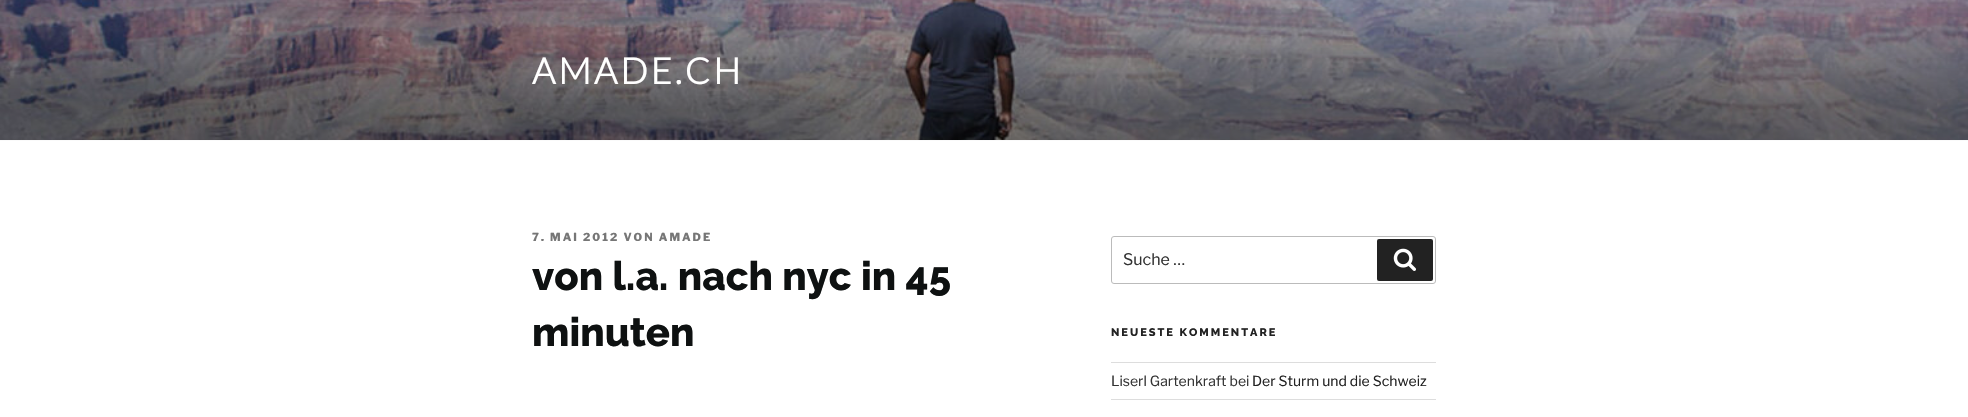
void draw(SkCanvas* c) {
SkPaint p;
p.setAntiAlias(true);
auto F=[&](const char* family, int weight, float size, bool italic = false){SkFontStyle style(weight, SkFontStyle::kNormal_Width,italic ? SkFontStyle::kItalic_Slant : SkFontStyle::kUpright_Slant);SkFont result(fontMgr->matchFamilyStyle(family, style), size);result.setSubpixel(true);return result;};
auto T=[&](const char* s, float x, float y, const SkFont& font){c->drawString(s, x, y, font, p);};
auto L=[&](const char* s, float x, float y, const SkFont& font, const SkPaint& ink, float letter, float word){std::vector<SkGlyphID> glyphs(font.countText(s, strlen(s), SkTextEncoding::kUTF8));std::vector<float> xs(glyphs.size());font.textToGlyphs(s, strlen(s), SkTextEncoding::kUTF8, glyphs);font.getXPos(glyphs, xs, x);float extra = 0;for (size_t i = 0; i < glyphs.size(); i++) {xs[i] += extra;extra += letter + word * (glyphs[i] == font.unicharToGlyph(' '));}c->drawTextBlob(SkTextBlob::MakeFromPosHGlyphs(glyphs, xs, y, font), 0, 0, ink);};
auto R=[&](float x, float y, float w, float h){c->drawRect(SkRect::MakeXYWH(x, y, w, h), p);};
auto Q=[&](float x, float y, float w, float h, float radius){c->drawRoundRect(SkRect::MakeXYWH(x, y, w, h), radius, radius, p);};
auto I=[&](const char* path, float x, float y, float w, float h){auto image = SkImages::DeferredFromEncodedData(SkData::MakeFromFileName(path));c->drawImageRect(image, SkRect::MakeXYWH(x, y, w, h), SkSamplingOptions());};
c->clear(0xffffffff);
p.setColor(0xfffafafa);
R(0,140,1968,1);
I("1.png",0,0,1968,140);
auto f1 = F("Lato",700,36);
p.setColor(0xffffffff);
L("AMADE.CH",532,84,f1,p,3,0);
auto f2 = F("Libre Franklin",100,11);
p.setColor(0xff767676);
L("7. MAI 2012 VON AMADE",532,241,f2,p,2,0);
auto f3 = F("Raleway",800,40);
p.setColor(0xff0e1111);
T("von l.a. nach nyc in 45",532,290,f3);
T("minuten",532,346,f3);
p.setStroke(true);
p.setStrokeWidth(1);
p.setColor(0xffbbbbbb);
c->drawRoundRect(SkRect::MakeXYWH(1111.5,236.5,324,47),2.5,2.5,p);
auto f4 = F("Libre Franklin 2",100,16);
p.setStroke(false);
p.setColor(0xff333333);
T("Suche …",1123,265,f4);
p.setColor(0xff222222);
Q(1377,239,56,42,2);
I("2.png",1393,248,23,23);
auto f5 = F("Raleway",800,11);
L("NEUESTE KOMMENTARE",1111,336,f5,p,2,0);
p.setColor(0xffdddddd);
R(1111,362,325,1);
R(1111,399,325,1);
auto f6 = F("Libre Franklin 2",100,14);
p.setColor(0xff333333);
T("Liserl Gartenkraft bei",1111,386,f6);
p.setColor(0xff222222);
T("Der Sturm und die Schweiz",1252,386,f6);
}
